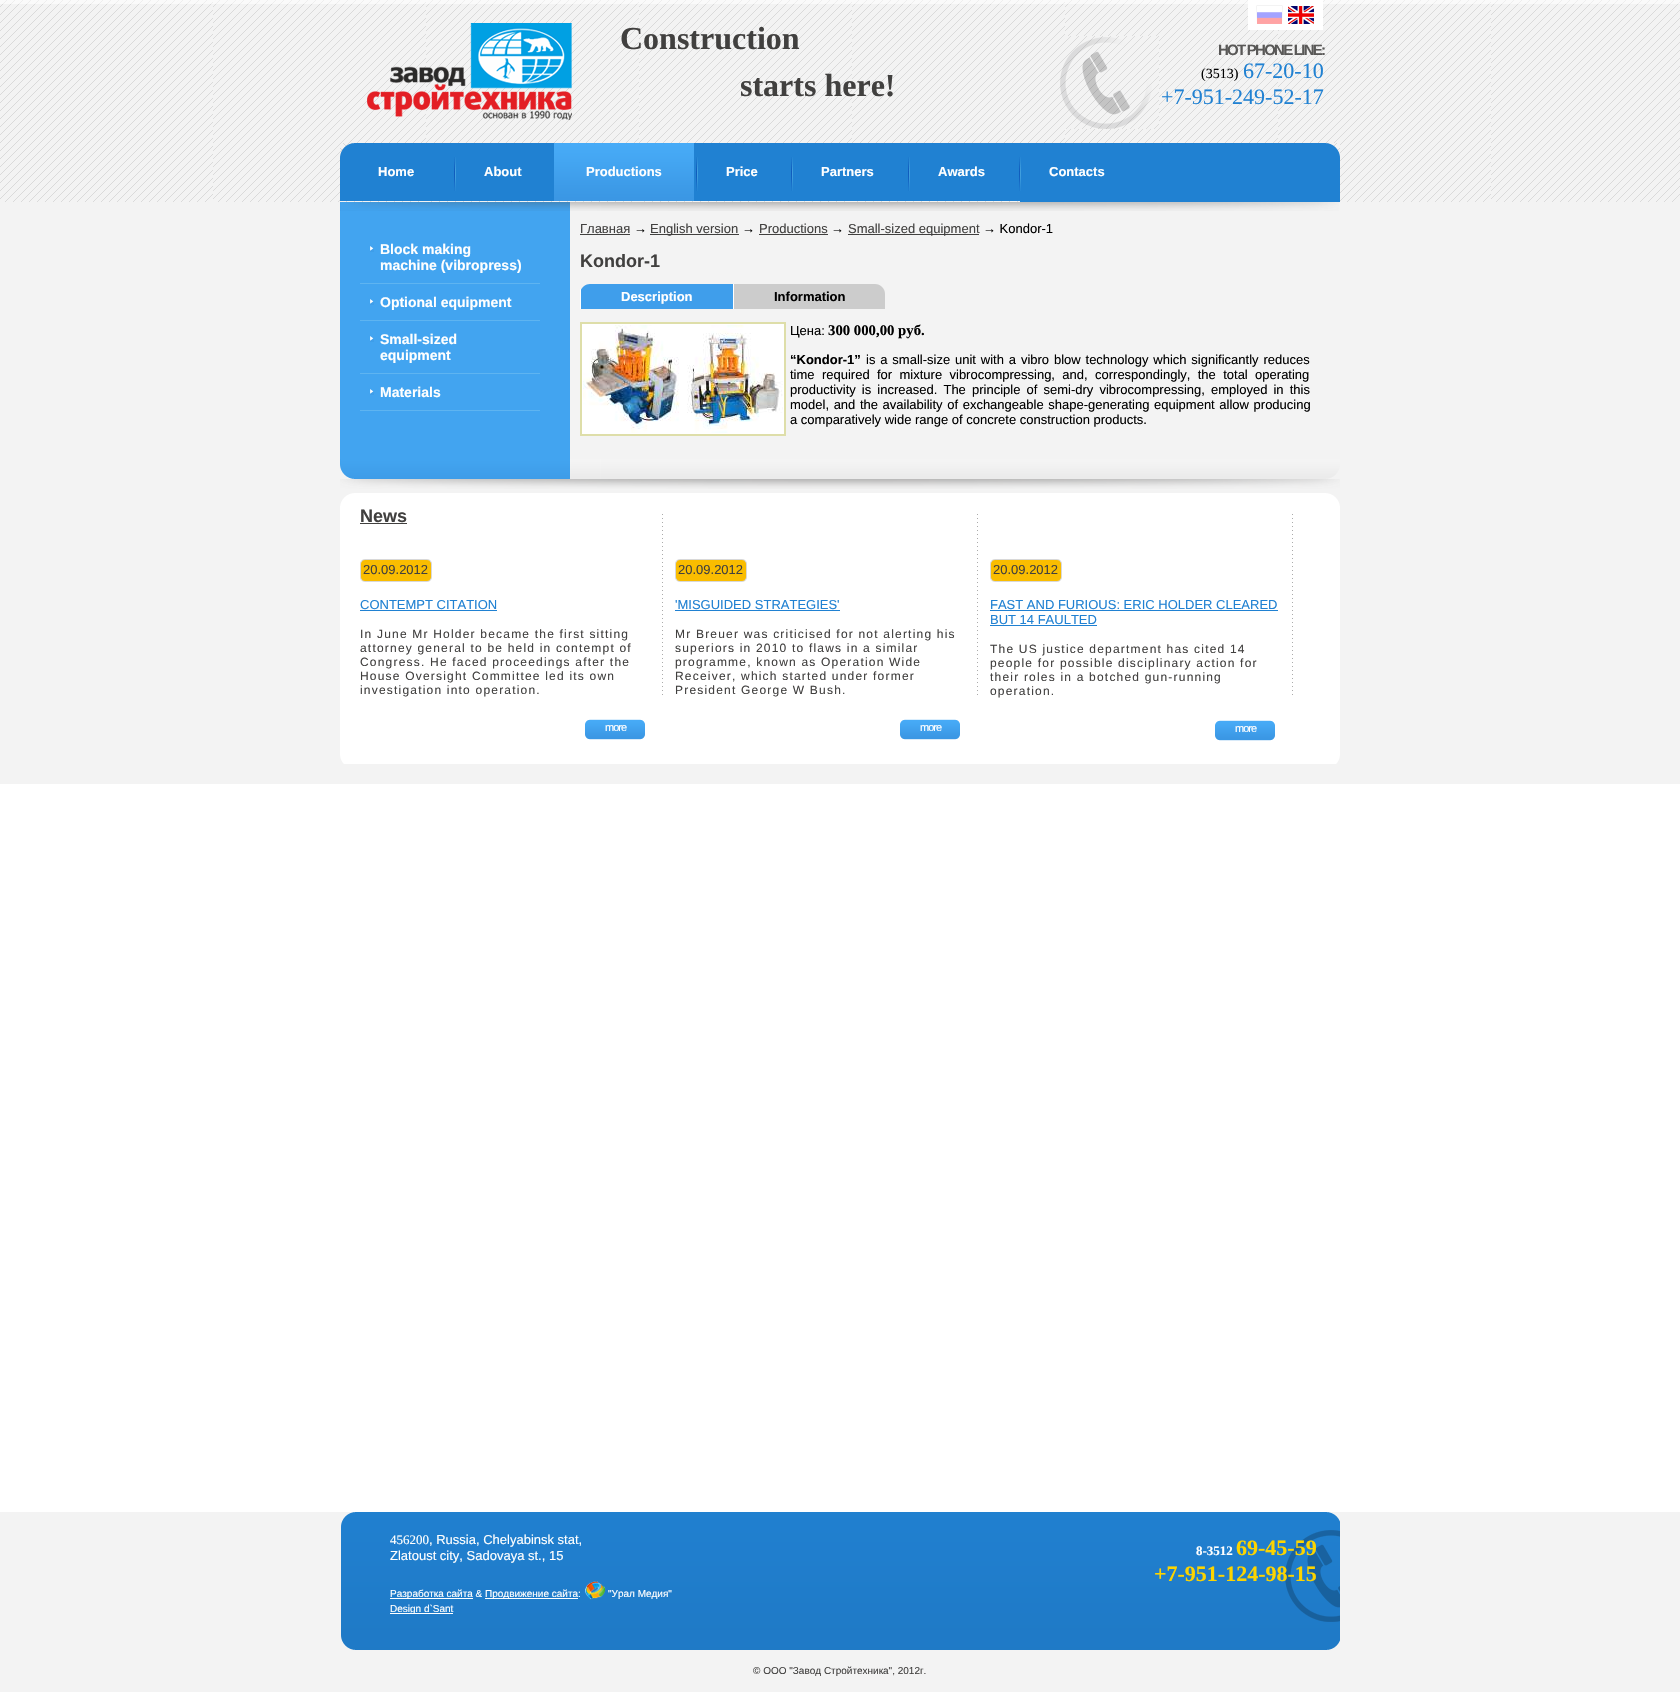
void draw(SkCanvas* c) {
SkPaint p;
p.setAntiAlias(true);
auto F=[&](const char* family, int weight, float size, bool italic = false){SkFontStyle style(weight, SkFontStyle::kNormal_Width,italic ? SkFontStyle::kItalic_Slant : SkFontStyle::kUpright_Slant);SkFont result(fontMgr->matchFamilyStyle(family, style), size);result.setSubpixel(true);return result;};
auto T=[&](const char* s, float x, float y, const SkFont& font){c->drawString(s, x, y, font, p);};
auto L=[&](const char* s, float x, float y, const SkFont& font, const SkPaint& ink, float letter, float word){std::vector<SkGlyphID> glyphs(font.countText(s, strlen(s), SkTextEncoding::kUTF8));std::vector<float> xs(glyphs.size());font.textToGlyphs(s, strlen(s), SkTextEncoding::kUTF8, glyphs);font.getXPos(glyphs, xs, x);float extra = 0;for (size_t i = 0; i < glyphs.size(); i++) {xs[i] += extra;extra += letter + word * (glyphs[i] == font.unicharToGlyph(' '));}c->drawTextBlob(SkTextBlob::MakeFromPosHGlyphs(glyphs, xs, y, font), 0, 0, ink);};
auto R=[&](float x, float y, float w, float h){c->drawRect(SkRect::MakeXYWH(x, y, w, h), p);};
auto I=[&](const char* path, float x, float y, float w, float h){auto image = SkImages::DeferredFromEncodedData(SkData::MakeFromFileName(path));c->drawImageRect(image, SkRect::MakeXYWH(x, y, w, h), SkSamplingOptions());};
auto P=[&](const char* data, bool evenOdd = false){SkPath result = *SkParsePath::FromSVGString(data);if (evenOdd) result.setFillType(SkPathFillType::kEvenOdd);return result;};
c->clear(0xffffffff);
I("1.png",0,0,1680,202);
I("2.png",367,23,205,97);
p.setColor(0xffffffff);
R(1248,0,75,30);
I("3.png",1256,5,27,19);
I("4.png",1288,6,26,18);
auto f1 = F("Liberation Serif",700,32);
p.setColor(0xff41403f);
T("Construction",620,49,f1);
T("starts here!",740,96,f1);
I("5.png",1060,36,99,93);
auto f2 = F("Liberation Sans",700,15);
p.setColor(0xff595857);
L("HOT PHONE LINE:",1218,55,f2,p,-1.75,0);
auto f3 = F("Liberation Serif",400,14);
p.setColor(0xff000000);
T("(3513)",1201,78,f3);
auto f4 = F("Liberation Serif",400,22);
p.setColor(0xff2081d2);
T("67-20-10",1243,78,f4);
T("+7-951-249-52-17",1161,104,f4);
I("6.png",1020,143,320,59);
I("7.png",340,143,112,58);
auto f5 = F("Liberation Sans",700,13);
p.setColor(0xffffffff);
T("Home",378,176,f5);
p.setColor(0xff2081d2);
R(452,143,102,58);
I("8.png",454,157,2,34);
p.setColor(0xffffffff);
T("About",484,176,f5);
I("9.png",554,143,140,58);
T("Productions",586,176,f5);
p.setColor(0xff2081d2);
R(694,143,326,58);
I("8.png",696,157,2,34);
p.setColor(0xffffffff);
T("Price",726,176,f5);
I("8.png",791,157,2,34);
T("Partners",821,176,f5);
I("8.png",908,157,2,34);
T("Awards",938,176,f5);
I("8.png",1019,157,2,34);
T("Contacts",1049,176,f5);
p.setColor(0xfff3f3f3);
R(0,202,1680,582);
I("10.png",340,202,999,9);
p.setColor(0xff42a4f0);
R(340,211,230,248);
I("11.png",370,246,4,6);
p.setColor(0xff5eb4f1);
R(360,283,180,1);
auto f6 = F("Liberation Sans",700,14);
p.setColor(0xffffffff);
T("Block making",380,254,f6);
T("machine (vibropress)",380,270,f6);
I("11.png",370,299,4,6);
p.setColor(0xff5eb4f1);
R(360,320,180,1);
p.setColor(0xffffffff);
T("Optional equipment",380,307,f6);
I("11.png",370,336,4,6);
p.setColor(0xff5eb4f1);
R(360,373,180,1);
p.setColor(0xffffffff);
T("Small-sized",380,344,f6);
T("equipment",380,360,f6);
I("11.png",370,389,4,6);
p.setColor(0xff5eb4f1);
R(360,410,180,1);
p.setColor(0xffffffff);
T("Materials",380,397,f6);
auto f7 = F("Liberation Sans",400,13);
p.setColor(0xff41403f);
T("Главная",580,233,f7);
R(580,234,50,1);
p.setColor(0xff000000);
T("→",634,233,f7);
p.setColor(0xff41403f);
R(650,234,89,1);
T("English version",650,233,f7);
p.setColor(0xff000000);
T("→",742,233,f7);
p.setColor(0xff41403f);
T("Productions",759,233,f7);
R(759,234,69,1);
p.setColor(0xff000000);
T("→",831,233,f7);
p.setColor(0xff41403f);
R(848,234,131,1);
T("Small-sized equipment",848,233,f7);
p.setColor(0xff000000);
T("→ Kondor-1",983,233,f7);
auto f8 = F("Liberation Sans",700,18);
p.setColor(0xff41403f);
T("Kondor-1",580,267,f8);
p.setColor(0xff3f9eeb);
c->drawPath(P("M590 284h143v25h-153v-15c0-5.5 4.5-10 10-10z"),p);
p.setColor(0xffffffff);
R(580,289,1,20);
T("Description",621,301,f5);
p.setColor(0xffcccccc);
c->drawPath(P("M733 284h142c5.5 0 10 4.5 10 10v15h-152z"),p);
p.setColor(0xffffffff);
R(733,284,1,25);
p.setColor(0xff000000);
T("Information",774,301,f5);
p.setColor(0xffffffff);
c->drawRect(SkRect::MakeXYWH(581,323,204,112),p);
p.setStroke(true);
p.setStrokeWidth(2);
p.setColor(0xffdedea9);
c->drawRect(SkRect::MakeXYWH(581,323,204,112),p);
I("12.png",583,325,200,108);
p.setStroke(false);
p.setColor(0xff000000);
T("Цена:",790,335,f7);
auto f9 = F("Liberation Serif",700,14.75);
T("300 000,00 руб.",828,335,f9);
T("“Kondor-1”",790,364,f5);
L("is a small-size unit with a vibro blow technology which significantly reduces",866,364,f7,p,0,1.25);
L("time required for mixture vibrocompressing, and, correspondingly, the total operating",790,379,f7,p,0,3.75);
L("productivity is increased. The principle of semi-dry vibrocompressing, employed in this",790,394,f7,p,0,2.5);
L("model, and the availability of exchangeable shape-generating equipment allow producing",790,409,f7,p,0,1);
T("a comparatively wide range of concrete construction products.",790,424,f7);
I("13.png",340,459,1000,30);
I("14.png",340,493,1000,13);
p.setColor(0xffffffff);
R(340,506,1000,245);
p.setColor(0xff41403f);
T("News",360,522,f8);
R(360,523,47,1);
I("15.png",662,514,1,181);
I("16.png",360,559,72,23);
T("20.09.2012",363,574,f7);
p.setColor(0xff2081d2);
T("CONTEMPT CITATION",360,609,f7);
R(360,610,137,1);
auto f10 = F("Liberation Sans",400,12);
p.setColor(0xff41403f);
L("In June Mr Holder became the first sitting",360,638,f10,p,1.2,0);
L("attorney general to be held in contempt of",360,652,f10,p,1.2,0);
L("Congress. He faced proceedings after the",360,666,f10,p,1.2,0);
L("House Oversight Committee led its own",360,680,f10,p,1.2,0);
L("investigation into operation.",360,694,f10,p,1.2,0);
I("17.png",585,719,60,21);
auto f11 = F("Liberation Sans",400,11);
p.setColor(0xffffffff);
L("more",605,731,f11,p,-1,0);
I("15.png",977,514,1,181);
I("16.png",675,559,72,23);
p.setColor(0xff41403f);
T("20.09.2012",678,574,f7);
p.setColor(0xff2081d2);
T("'MISGUIDED STRATEGIES'",675,609,f7);
R(675,610,165,1);
p.setColor(0xff41403f);
L("Mr Breuer was criticised for not alerting his",675,638,f10,p,1.2,0);
L("superiors in 2010 to flaws in a similar",675,652,f10,p,1.2,0);
L("programme, known as Operation Wide",675,666,f10,p,1.2,0);
L("Receiver, which started under former",675,680,f10,p,1.2,0);
L("President George W Bush.",675,694,f10,p,1.2,0);
I("17.png",900,719,60,21);
p.setColor(0xffffffff);
L("more",920,731,f11,p,-1,0);
I("15.png",1292,514,1,181);
I("16.png",990,559,72,23);
p.setColor(0xff41403f);
T("20.09.2012",993,574,f7);
p.setColor(0xff2081d2);
T("FAST AND FURIOUS: ERIC HOLDER CLEARED",990,609,f7);
R(990,610,288,1);
T("BUT 14 FAULTED",990,624,f7);
R(990,625,107,1);
p.setColor(0xff41403f);
L("The US justice department has cited 14",990,653,f10,p,1.2,0);
L("people for possible disciplinary action for",990,667,f10,p,1.2,0);
L("their roles in a botched gun-running",990,681,f10,p,1.2,0);
L("operation.",990,695,f10,p,1.2,0);
I("17.png",1215,720,60,21);
p.setColor(0xffffffff);
L("more",1235,732,f11,p,-1,0);
I("18.png",340,751,1000,13);
p.setColor(0xfff3f3f3);
R(0,1512,1680,180);
I("19.png",341,1512,999,138);
auto f12 = F("Liberation Serif",400,13);
p.setColor(0xffffffff);
T("456200",390,1544,f12);
T(", Russia, Chelyabinsk stat,",429,1544,f7);
T("Zlatoust city, Sadovaya st., 15",390,1560,f7);
R(390,1598,83,1);
auto f13 = F("Liberation Sans",400,10);
T("Разработка сайта &",390,1597,f13);
R(485,1598,93,1);
T("Продвижение сайта:",485,1597,f13);
I("20.png",585,1581,21,19);
T("\"Урал Медия\"",608,1597,f13);
R(390,1613,63,1);
T("Design d`Sant",390,1612,f13);
auto f14 = F("Liberation Serif",700,13);
T("8-3512",1196,1555,f14);
auto f15 = F("Liberation Serif",700,22);
p.setColor(0xfffcd400);
T("69-45-59",1236,1555,f15);
T("+7-951-124-98-15",1154,1581,f15);
p.setColor(0xff41403f);
T("© ООО \"Завод Стройтехника\", 2012г.",753,1674,f13);
}
